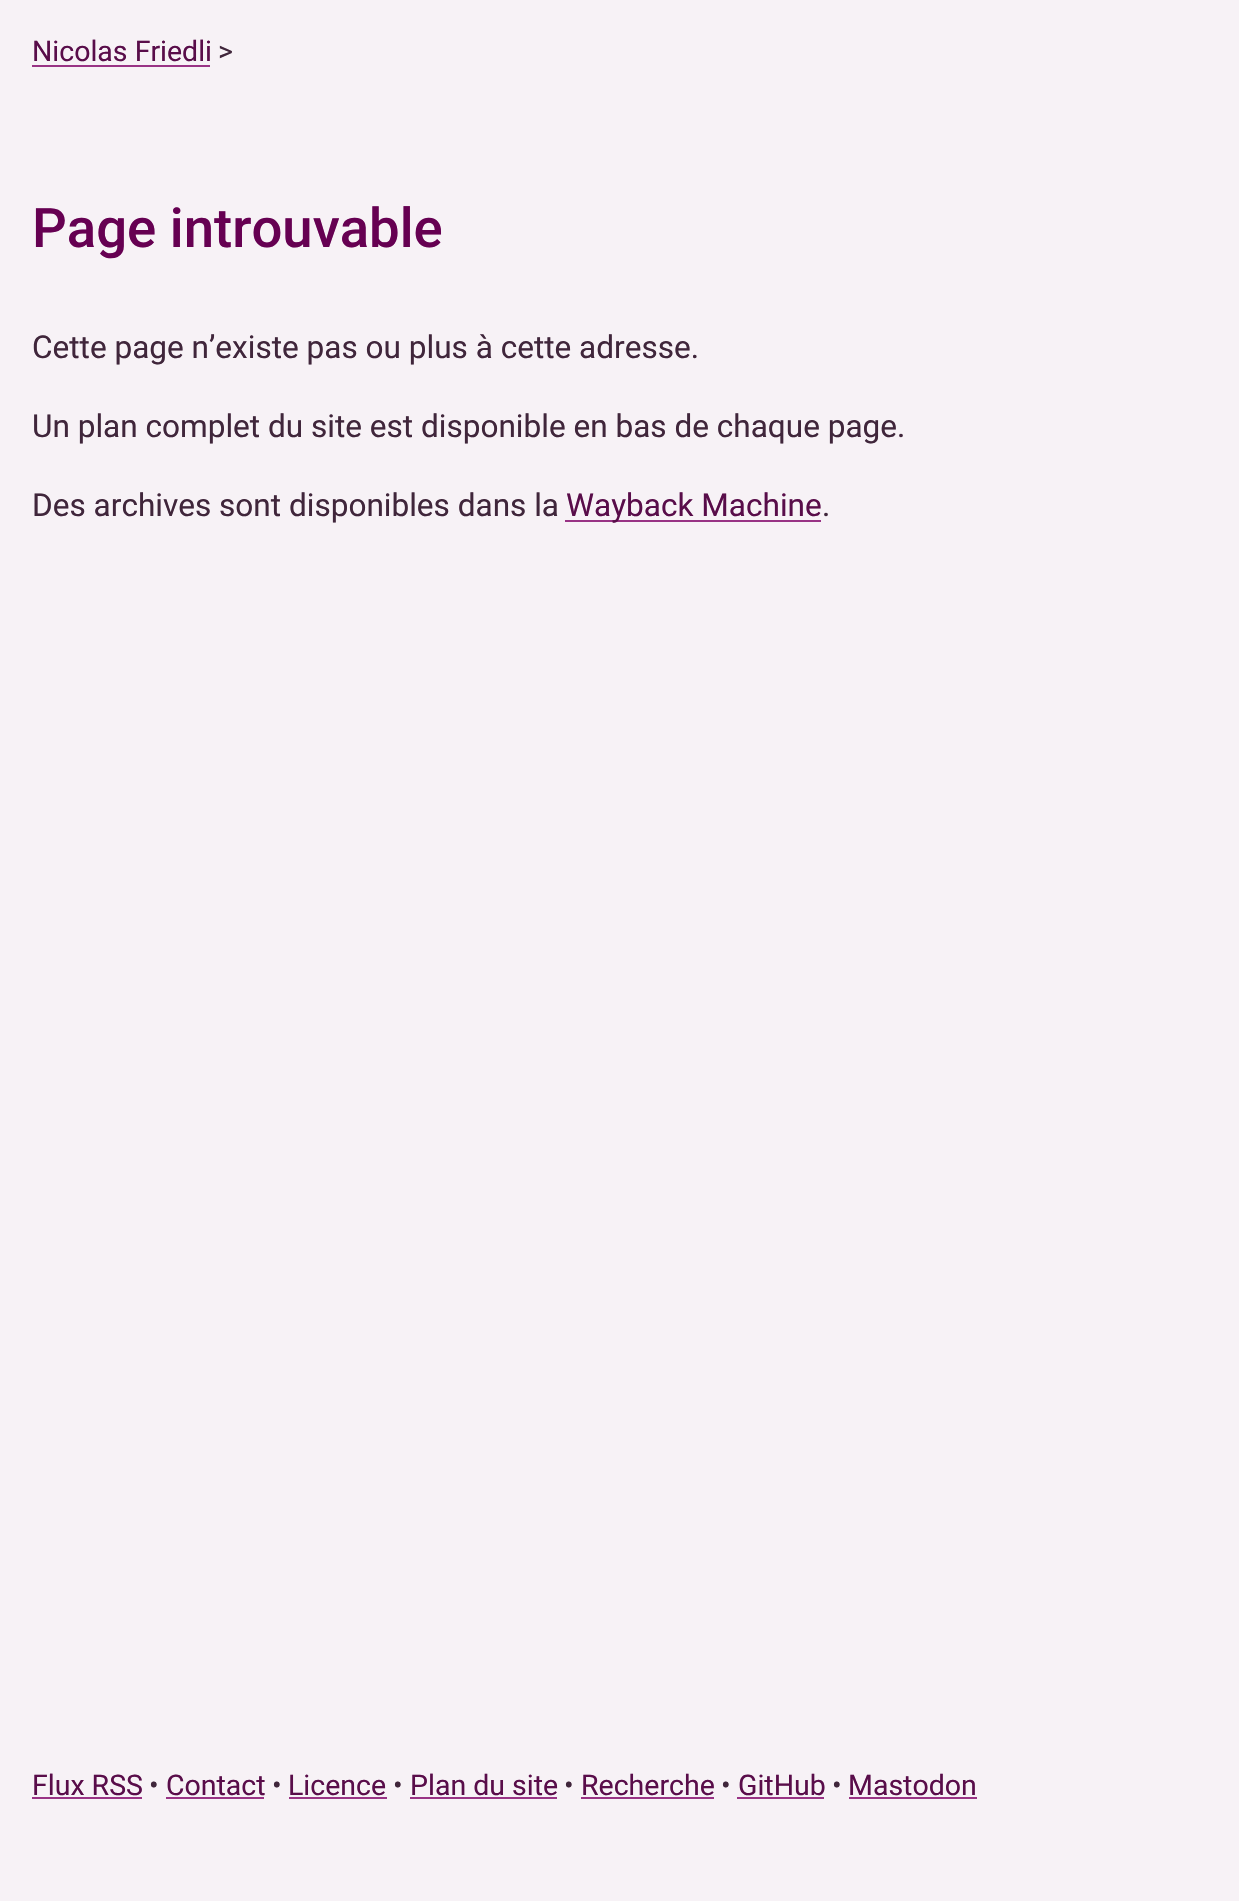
void draw(SkCanvas* c) {
SkPaint p;
p.setAntiAlias(true);
auto F=[&](const char* family, int weight, float size, bool italic = false){SkFontStyle style(weight, SkFontStyle::kNormal_Width,italic ? SkFontStyle::kItalic_Slant : SkFontStyle::kUpright_Slant);SkFont result(fontMgr->matchFamilyStyle(family, style), size);result.setSubpixel(true);return result;};
auto T=[&](const char* s, float x, float y, const SkFont& font){c->drawString(s, x, y, font, p);};
auto R=[&](float x, float y, float w, float h){c->drawRect(SkRect::MakeXYWH(x, y, w, h), p);};
c->clear(0xfff7f2f6);
auto f1 = F("Roboto",400,28.5);
p.setColor(0xff590d4a);
T("Nicolas Friedli",32,61,f1);
p.setColor(0xff993385);
R(32,65,178,2);
p.setColor(0xff40263b);
T(">",218,61,f1);
auto f2 = F("Roboto",500,54.5);
p.setColor(0xff660052);
T("Page introuvable",32,247,f2);
auto f3 = F("Roboto",400,31.55);
p.setColor(0xff40263b);
T("Cette page n’existe pas ou plus à cette adresse.",32,358,f3);
T("Un plan complet du site est disponible en bas de chaque page.",32,437,f3);
T("Des archives sont disponibles dans la",32,516,f3);
p.setColor(0xff993385);
R(565,520,256,2);
p.setColor(0xff590d4a);
T("Wayback Machine",566,516,f3);
p.setColor(0xff40263b);
T(".",822,516,f3);
p.setColor(0xff590d4a);
T("Flux RSS",32,1795,f1);
p.setColor(0xff993385);
R(32,1797,110,2);
p.setColor(0xff40263b);
T("•",149,1795,f1);
p.setColor(0xff590d4a);
T("Contact",166,1795,f1);
p.setColor(0xff993385);
R(166,1797,98,2);
p.setColor(0xff40263b);
T("•",272,1795,f1);
p.setColor(0xff590d4a);
T("Licence",288,1795,f1);
p.setColor(0xff993385);
R(289,1797,98,2);
p.setColor(0xff40263b);
T("•",393,1795,f1);
p.setColor(0xff590d4a);
T("Plan du site",410,1795,f1);
p.setColor(0xff993385);
R(410,1797,147,2);
p.setColor(0xff40263b);
T("•",564,1795,f1);
p.setColor(0xff590d4a);
T("Recherche",581,1795,f1);
p.setColor(0xff993385);
R(581,1797,133,2);
p.setColor(0xff40263b);
T("•",721,1795,f1);
p.setColor(0xff590d4a);
T("GitHub",738,1795,f1);
p.setColor(0xff993385);
R(737,1797,87,2);
p.setColor(0xff40263b);
T("•",832,1795,f1);
p.setColor(0xff590d4a);
T("Mastodon",848,1795,f1);
p.setColor(0xff993385);
R(849,1797,128,2);
}
